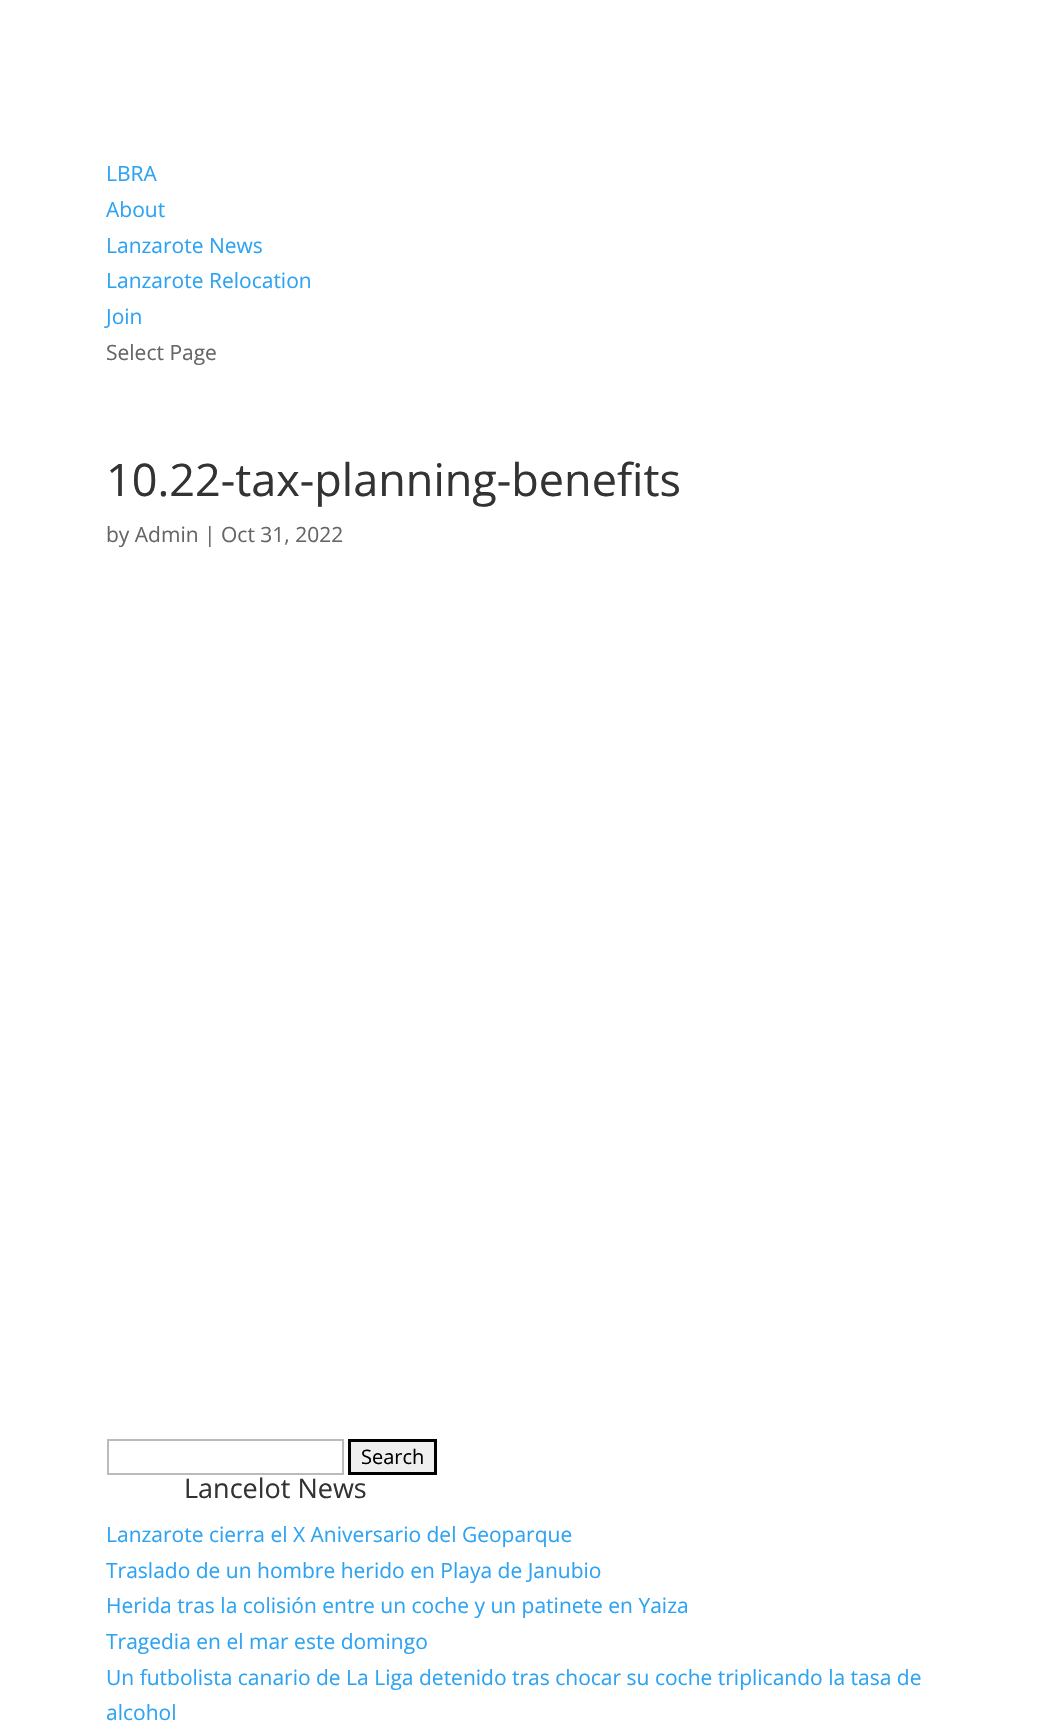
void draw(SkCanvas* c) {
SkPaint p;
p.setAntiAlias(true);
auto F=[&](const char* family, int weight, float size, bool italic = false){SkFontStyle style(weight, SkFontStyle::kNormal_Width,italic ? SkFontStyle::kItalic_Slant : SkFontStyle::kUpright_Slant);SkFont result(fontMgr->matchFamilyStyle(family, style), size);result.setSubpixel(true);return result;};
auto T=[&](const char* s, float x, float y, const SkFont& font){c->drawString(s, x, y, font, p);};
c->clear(0xffffffff);
auto f1 = F("Open Sans",400,21);
p.setColor(0xff2ea3f2);
T("LBRA",106,181,f1);
T("About",106,217,f1);
T("Lanzarote News",106,253,f1);
T("Lanzarote Relocation",106,288,f1);
T("Join",106,324,f1);
p.setColor(0xff666666);
T("Select Page",106,360,f1);
auto f2 = F("Open Sans",400,45);
p.setColor(0xff333333);
T("10.22-tax-planning-benefits",106,496,f2);
p.setColor(0xff666666);
T("by Admin | Oct 31, 2022",106,542,f1);
p.setStroke(true);
p.setStrokeWidth(2);
p.setColor(0xffbbbbbb);
c->drawRect(SkRect::MakeXYWH(108,1440,235,34),p);
p.setStroke(false);
p.setColor(0xffefefef);
c->drawRect(SkRect::MakeXYWH(349.5,1440.5,86,33),p);
p.setStroke(true);
p.setStrokeWidth(3);
p.setColor(0xff000000);
c->drawRect(SkRect::MakeXYWH(349.5,1440.5,86,33),p);
auto f3 = F("Open Sans",400,20);
p.setStroke(false);
T("Search",361,1464,f3);
auto f4 = F("Open Sans",400,27);
p.setColor(0xff333333);
T("Lancelot News",184,1498,f4);
p.setColor(0xff2ea3f2);
T("Lanzarote cierra el X Aniversario del Geoparque",106,1542,f1);
T("Traslado de un hombre herido en Playa de Janubio",106,1578,f1);
T("Herida tras la colisión entre un coche y un patinete en Yaiza",106,1613,f1);
T("Tragedia en el mar este domingo",106,1649,f1);
T("Un futbolista canario de La Liga detenido tras chocar su coche triplicando la tasa de",106,1685,f1);
T("alcohol",106,1720,f1);
}
